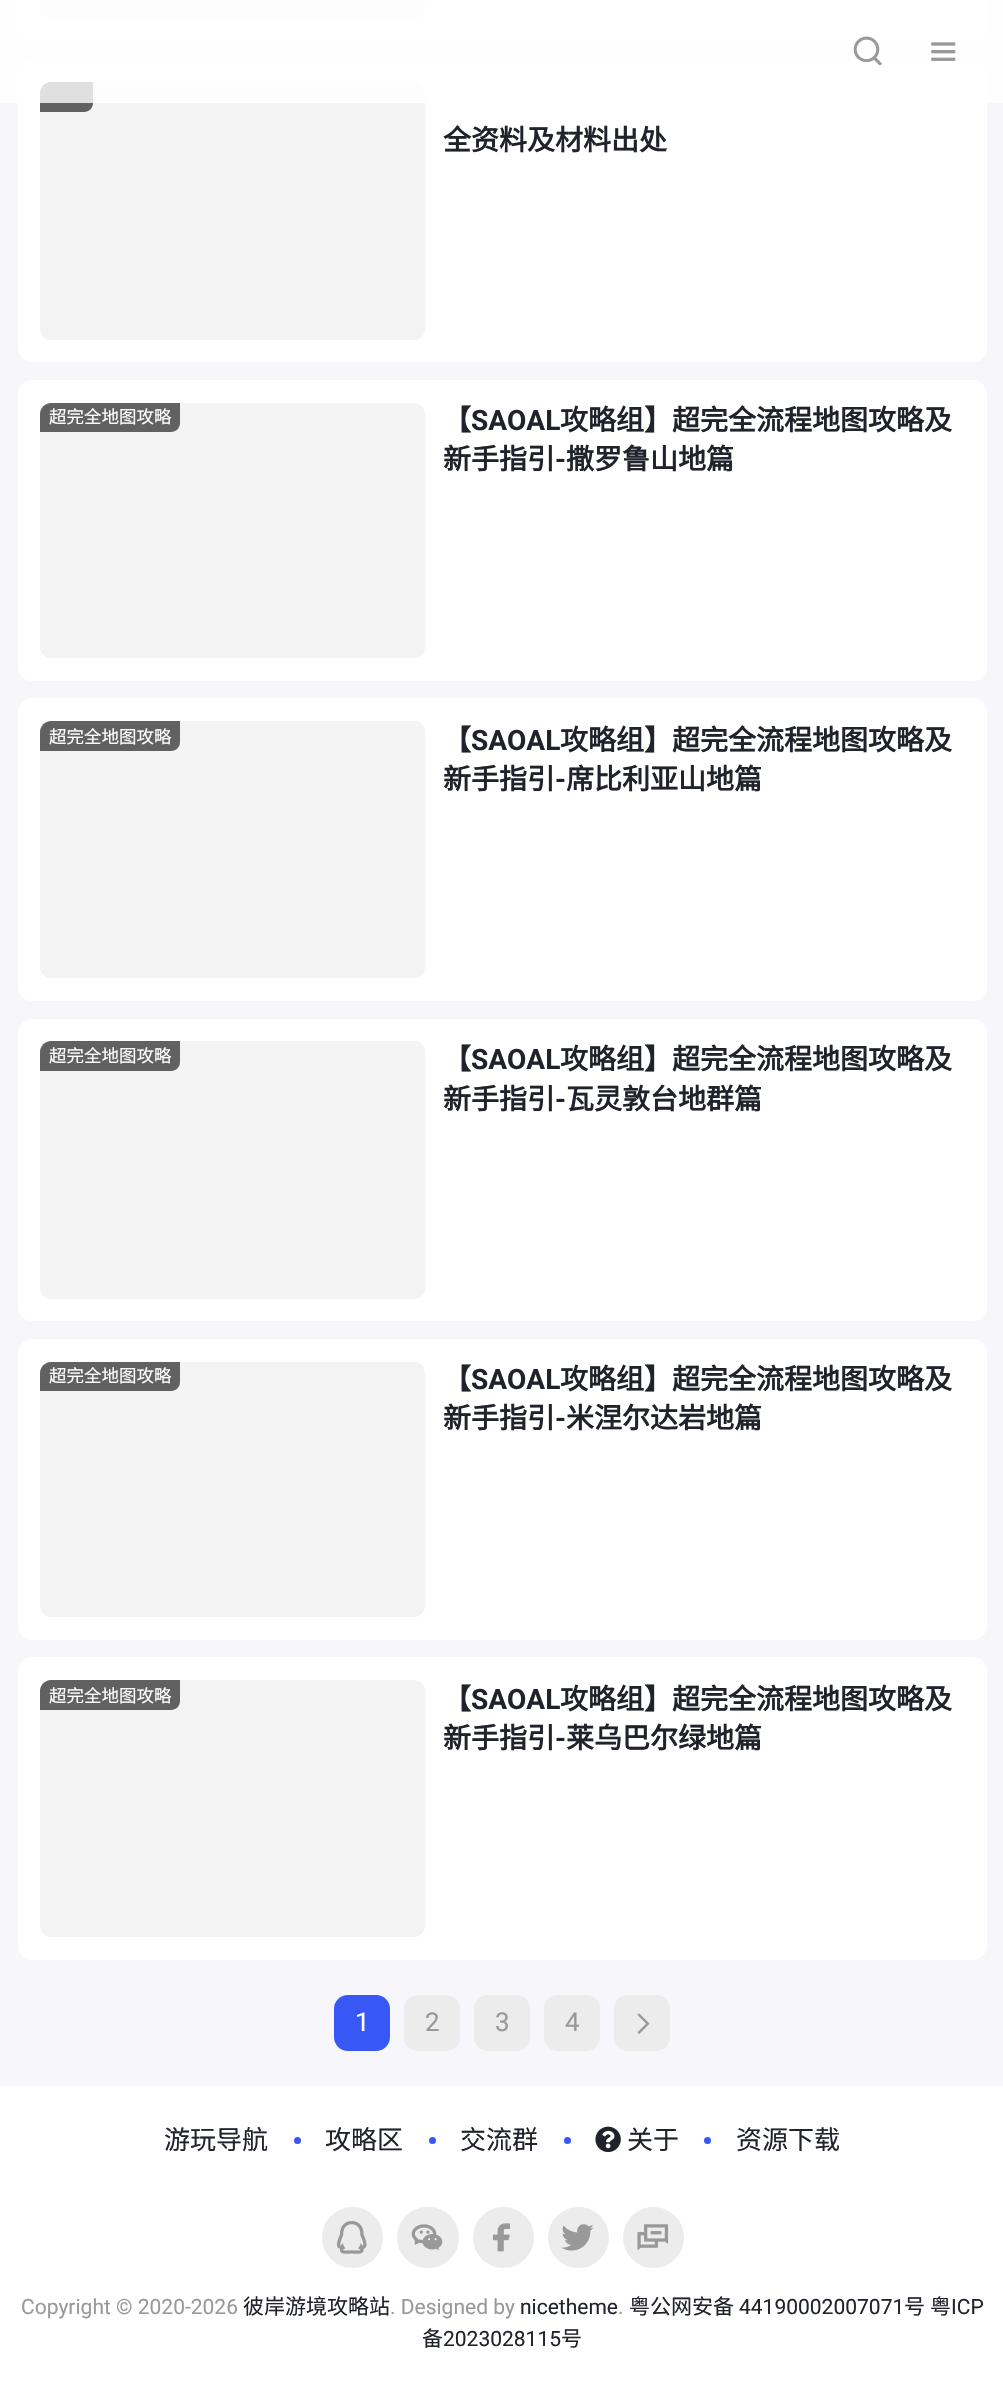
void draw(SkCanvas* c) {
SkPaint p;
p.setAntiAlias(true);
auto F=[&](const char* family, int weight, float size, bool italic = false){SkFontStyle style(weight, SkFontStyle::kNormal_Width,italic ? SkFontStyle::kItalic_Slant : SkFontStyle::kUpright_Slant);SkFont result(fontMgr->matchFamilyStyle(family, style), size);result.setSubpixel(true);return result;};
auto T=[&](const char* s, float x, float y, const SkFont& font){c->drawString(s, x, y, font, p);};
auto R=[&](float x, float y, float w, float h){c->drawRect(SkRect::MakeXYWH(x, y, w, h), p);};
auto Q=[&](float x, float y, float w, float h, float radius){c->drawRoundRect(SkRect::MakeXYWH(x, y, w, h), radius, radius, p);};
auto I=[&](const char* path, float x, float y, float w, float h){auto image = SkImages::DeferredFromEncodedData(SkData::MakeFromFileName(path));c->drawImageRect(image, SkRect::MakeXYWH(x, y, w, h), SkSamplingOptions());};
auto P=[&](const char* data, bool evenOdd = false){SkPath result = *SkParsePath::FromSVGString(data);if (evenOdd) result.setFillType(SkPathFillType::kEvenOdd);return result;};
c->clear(0xfff7f7fb);
p.setColor(0xffffffff);
Q(18,-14,969,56,14);
p.setColor(0xfff3f3f3);
Q(40,-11,385,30,11);
p.setColor(0xffffffff);
Q(18,60,969,302,14);
p.setColor(0xfff3f3f3);
Q(40,82,385,258,11);
p.setColor(0x99000000);
c->drawPath(P("M51 82h42v21c0 5-4 9-9 9h-44v-19c0-6 5-11 11-11z"),p);
p.setColor(0xccffffff);
R(0,0,1003,103);
I("1.png",853,36,29,30);
I("2.png",931,42,25,19);
auto f1 = F("Noto Sans CJK SC",700,28);
p.setColor(0xff20232b);
T("全资料及材料出处",443,150,f1);
p.setColor(0xffffffff);
Q(18,380,969,301,14);
p.setColor(0xfff3f3f3);
Q(40,403,385,255,11);
p.setColor(0x99000000);
c->drawPath(P("M51 403h129v20c0 5-4 9-9 9h-131v-18c0-6 5-11 11-11z"),p);
auto f2 = F("Noto Sans CJK SC",400,17.5);
p.setColor(0xffffffff);
T("超完全地图攻略",49,423,f2);
p.setColor(0xff20232b);
T("【",443,430,f1);
auto f3 = F("Roboto",700,28);
T("SAOAL",471,430,f3);
T("攻略组】超完全流程地图攻略及",560,430,f1);
T("新手指引",443,469,f1);
T("-",555,469,f3);
T("撒罗鲁山地篇",566,469,f1);
p.setColor(0xffffffff);
Q(18,698,969,303,14);
p.setColor(0xfff3f3f3);
Q(40,721,385,257,11);
p.setColor(0x99000000);
c->drawPath(P("M51 721h129v21c0 5-4 9-9 9h-131v-19c0-6 5-11 11-11z"),p);
p.setColor(0xffffffff);
T("超完全地图攻略",49,743,f2);
p.setColor(0xff20232b);
T("【",443,750,f1);
T("SAOAL",471,750,f3);
T("攻略组】超完全流程地图攻略及",560,750,f1);
T("新手指引",443,789,f1);
T("-",555,789,f3);
T("席比利亚山地篇",566,789,f1);
p.setColor(0xffffffff);
Q(18,1019,969,302,14);
p.setColor(0xfff3f3f3);
Q(40,1041,385,258,11);
p.setColor(0x99000000);
c->drawPath(P("M51 1041h129v21c0 5-4 9-9 9h-131v-19c0-6 5-11 11-11z"),p);
p.setColor(0xffffffff);
T("超完全地图攻略",49,1062,f2);
p.setColor(0xff20232b);
T("【",443,1069,f1);
T("SAOAL",471,1069,f3);
T("攻略组】超完全流程地图攻略及",560,1069,f1);
T("新手指引",443,1109,f1);
T("-",555,1109,f3);
T("瓦灵敦台地群篇",566,1109,f1);
p.setColor(0xffffffff);
Q(18,1339,969,301,14);
p.setColor(0xfff3f3f3);
Q(40,1362,385,255,11);
p.setColor(0x99000000);
c->drawPath(P("M51 1362h129v20c0 5-4 9-9 9h-131v-18c0-6 5-11 11-11z"),p);
p.setColor(0xffffffff);
T("超完全地图攻略",49,1382,f2);
p.setColor(0xff20232b);
T("【",443,1389,f1);
T("SAOAL",471,1389,f3);
T("攻略组】超完全流程地图攻略及",560,1389,f1);
T("新手指引",443,1428,f1);
T("-",555,1428,f3);
T("米涅尔达岩地篇",566,1428,f1);
p.setColor(0xffffffff);
Q(18,1657,969,303,14);
p.setColor(0xfff3f3f3);
Q(40,1680,385,257,11);
p.setColor(0x99000000);
c->drawPath(P("M51 1680h129v21c0 5-4 9-9 9h-131v-19c0-6 5-11 11-11z"),p);
p.setColor(0xffffffff);
T("超完全地图攻略",49,1702,f2);
p.setColor(0xff20232b);
T("【",443,1709,f1);
T("SAOAL",471,1709,f3);
T("攻略组】超完全流程地图攻略及",560,1709,f1);
T("新手指引",443,1748,f1);
T("-",555,1748,f3);
T("莱乌巴尔绿地篇",566,1748,f1);
p.setColor(0xff3858f6);
Q(334,1995,56,56,14);
auto f4 = F("Roboto",400,26);
p.setColor(0xffffffff);
T("1",355,2031,f4);
p.setColor(0xffececec);
Q(404,1995,56,56,14);
p.setColor(0xff999999);
T("2",425,2031,f4);
p.setColor(0xffececec);
Q(474,1995,56,56,14);
p.setColor(0xff999999);
T("3",495,2031,f4);
p.setColor(0xffececec);
Q(544,1995,56,56,14);
p.setColor(0xff999999);
T("4",565,2031,f4);
p.setColor(0xffececec);
Q(614,1995,56,56,14);
I("3.png",637,2013,13,21);
p.setColor(0xffffffff);
R(0,2086,1003,297);
auto f5 = F("Noto Sans CJK SC",400,26);
p.setColor(0xff20232b);
T("游玩导航",164,2149,f5);
p.setColor(0xff3858f6);
c->drawCircle(297.5,2140.5,3.5,p);
p.setColor(0xff20232b);
T("攻略区",325,2149,f5);
p.setColor(0xff3858f6);
c->drawCircle(432.5,2140.5,3.5,p);
p.setColor(0xff20232b);
T("交流群",460,2149,f5);
p.setColor(0xff3858f6);
c->drawCircle(567.5,2140.5,3.5,p);
I("4.png",595,2126,26,27);
p.setColor(0xff20232b);
T("关于",627,2149,f5);
p.setColor(0xff3858f6);
c->drawCircle(707.5,2140.5,3.5,p);
p.setColor(0xff20232b);
T("资源下载",736,2149,f5);
p.setColor(0xffececec);
c->drawCircle(352.5,2237.5,29.5,p);
p.setStroke(true);
p.setStrokeWidth(2);
c->drawCircle(352.5,2237.5,29.5,p);
I("5.png",337,2221,30,33);
p.setStroke(false);
c->drawRoundRect(SkRect::MakeXYWH(398,2208,60,59),29.5,29.5,p);
p.setStroke(true);
c->drawRoundRect(SkRect::MakeXYWH(398,2208,60,59),29.5,29.5,p);
I("6.png",411,2224,32,27);
p.setStroke(false);
c->drawCircle(503.5,2237.5,29.5,p);
p.setStroke(true);
c->drawCircle(503.5,2237.5,29.5,p);
I("7.png",492,2223,18,29);
p.setStroke(false);
c->drawCircle(578.5,2237.5,29.5,p);
p.setStroke(true);
c->drawCircle(578.5,2237.5,29.5,p);
I("8.png",561,2224,33,27);
p.setStroke(false);
c->drawCircle(653.5,2237.5,29.5,p);
p.setStroke(true);
c->drawCircle(653.5,2237.5,29.5,p);
I("9.png",637,2224,32,26);
auto f6 = F("Roboto",400,21);
p.setStroke(false);
p.setColor(0xff999999);
T("Copyright © 2020-2026",21,2314,f6);
auto f7 = F("Noto Sans CJK SC",400,21);
p.setColor(0xff20232b);
T("彼岸游境攻略站",243,2314,f7);
p.setColor(0xff999999);
T(". Designed by",390,2314,f6);
p.setColor(0xff20232b);
T("nicetheme",520,2314,f6);
p.setColor(0xff999999);
T(".",618,2314,f6);
p.setColor(0xff20232b);
T("粤公网安备",629,2314,f7);
T("44190002007071",739,2314,f6);
T("号",904,2314,f7);
T("粤",930,2314,f7);
T("ICP",951,2314,f6);
T("备",422,2346,f7);
T("2023028115",443,2346,f6);
T("号",561,2346,f7);
}
